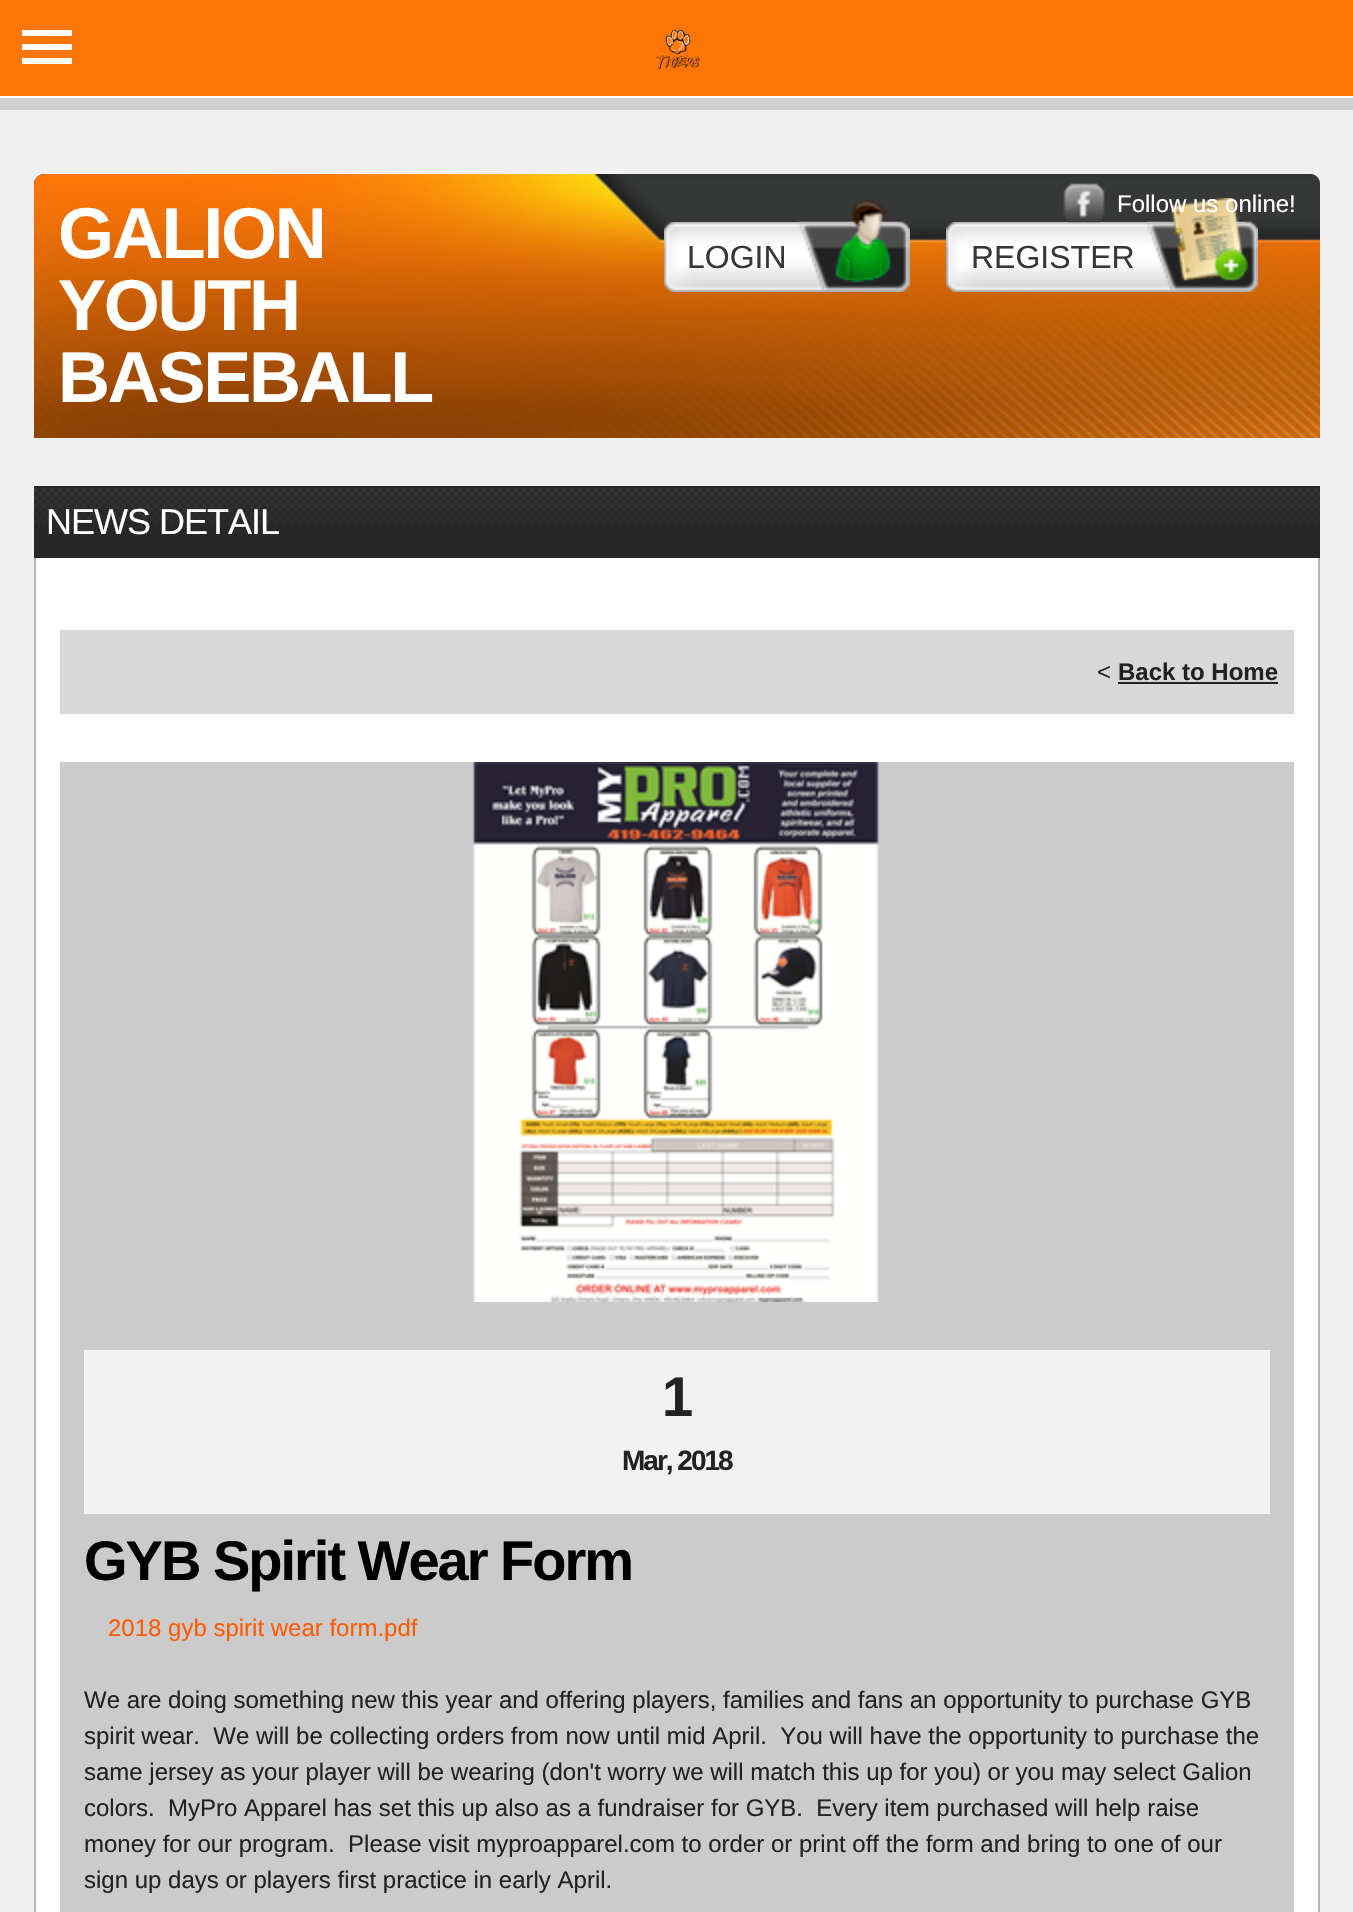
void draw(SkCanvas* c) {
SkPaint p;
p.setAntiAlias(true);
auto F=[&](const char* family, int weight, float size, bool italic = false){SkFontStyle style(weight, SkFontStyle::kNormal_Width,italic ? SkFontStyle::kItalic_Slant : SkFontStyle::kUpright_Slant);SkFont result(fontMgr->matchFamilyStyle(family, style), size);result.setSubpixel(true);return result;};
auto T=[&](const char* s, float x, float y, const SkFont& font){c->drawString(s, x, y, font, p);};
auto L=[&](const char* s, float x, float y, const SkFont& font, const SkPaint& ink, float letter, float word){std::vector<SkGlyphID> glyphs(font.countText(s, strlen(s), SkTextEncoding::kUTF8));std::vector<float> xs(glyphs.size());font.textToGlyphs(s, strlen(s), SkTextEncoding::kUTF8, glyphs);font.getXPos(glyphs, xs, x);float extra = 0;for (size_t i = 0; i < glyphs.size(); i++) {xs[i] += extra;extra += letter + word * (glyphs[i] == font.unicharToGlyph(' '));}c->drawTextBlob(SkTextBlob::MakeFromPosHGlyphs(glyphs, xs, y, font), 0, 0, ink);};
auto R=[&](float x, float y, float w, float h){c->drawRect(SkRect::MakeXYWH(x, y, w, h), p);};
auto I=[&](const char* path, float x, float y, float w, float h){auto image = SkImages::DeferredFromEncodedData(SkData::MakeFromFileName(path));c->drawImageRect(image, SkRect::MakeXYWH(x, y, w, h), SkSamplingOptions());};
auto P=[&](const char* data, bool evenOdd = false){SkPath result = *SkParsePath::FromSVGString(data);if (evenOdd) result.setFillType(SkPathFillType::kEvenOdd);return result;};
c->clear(0xfff0f0f0);
p.setColor(0xfffe7607);
R(0,0,1353,96);
p.setColor(0xffffffff);
R(0,96,1353,2);
c->drawPath(P("M22 30h50v6h-50zm0 14h50v6h-50zm0 14h50v6h-50z"),p);
I("1.png",656,29,44,41);
p.setColor(0xffd0d0d0);
R(0,98,1353,12);
p.setColor(0xff363837);
c->drawPath(P("M44 174h1266c5.5 0 10 4.5 10 10v254h-1286v-254c0-5.5 4.5-10 10-10z"),p);
I("2.png",34,174,1286,264);
I("6.png",946,222,300,70);
I("3.png",1063,183,42,40);
I("7.png",1146,198,112,94);
auto f1 = F("Liberation Sans",400,24);
p.setColor(0xffffffff);
T("Follow us online!",1117,212,f1);
auto f2 = F("Liberation Sans",700,72);
L("GALION",58,258,f2,p,-2.25,0);
L("YOUTH",58,330,f2,p,-2.25,0);
L("BASEBALL",58,402,f2,p,-2.25,0);
I("4.png",664,222,234,70);
I("5.png",798,200,112,92);
auto f3 = F("Liberation Sans",400,32);
p.setColor(0xff363837);
T("LOGIN",687,268,f3);
T("REGISTER",971,268,f3);
p.setColor(0xff272727);
R(34,486,1286,72);
I("8.png",34,488,1286,35);
auto f4 = F("Liberation Sans",400,36);
p.setColor(0xffffffff);
L("NEWS DETAIL",46,534,f4,p,-1,0);
R(36,558,1282,1354);
p.setColor(0xffb2b6bd);
R(1318,558,2,1354);
R(34,558,2,1354);
p.setColor(0xffd8d8d8);
R(60,630,1234,84);
p.setColor(0xff222222);
T("<",1097,680,f1);
auto f5 = F("Liberation Sans",700,24);
T("Back to Home",1118,680,f5);
R(1118,682,160,2);
p.setColor(0xffcbcbcb);
R(60,762,1234,1150);
I("9.png",472,762,407,540);
p.setColor(0xfff2f2f2);
R(84,1350,1186,164);
auto f6 = F("Liberation Sans",700,56);
p.setColor(0xff222222);
L("1",662,1416,f6,p,-2,0);
auto f7 = F("Liberation Sans",700,28);
L("Mar, 2018",622,1470,f7,p,-2,0);
p.setColor(0xff000000);
L("GYB Spirit Wear Form",84,1580,f6,p,-2,0);
p.setColor(0xffff5a00);
T("2018 gyb spirit wear form.pdf",108,1636,f1);
p.setColor(0xff222222);
T("We are doing something new this year and offering players, families and fans an opportunity to purchase GYB",84,1708,f1);
T("spirit wear.  We will be collecting orders from now until mid April.  You will have the opportunity to purchase the",84,1744,f1);
T("same jersey as your player will be wearing (don't worry we will match this up for you) or you may select Galion",84,1780,f1);
T("colors.  MyPro Apparel has set this up also as a fundraiser for GYB.  Every item purchased will help raise",84,1816,f1);
T("money for our program.  Please visit myproapparel.com to order or print off the form and bring to one of our",84,1852,f1);
T("sign up days or players first practice in early April.",84,1888,f1);
}
